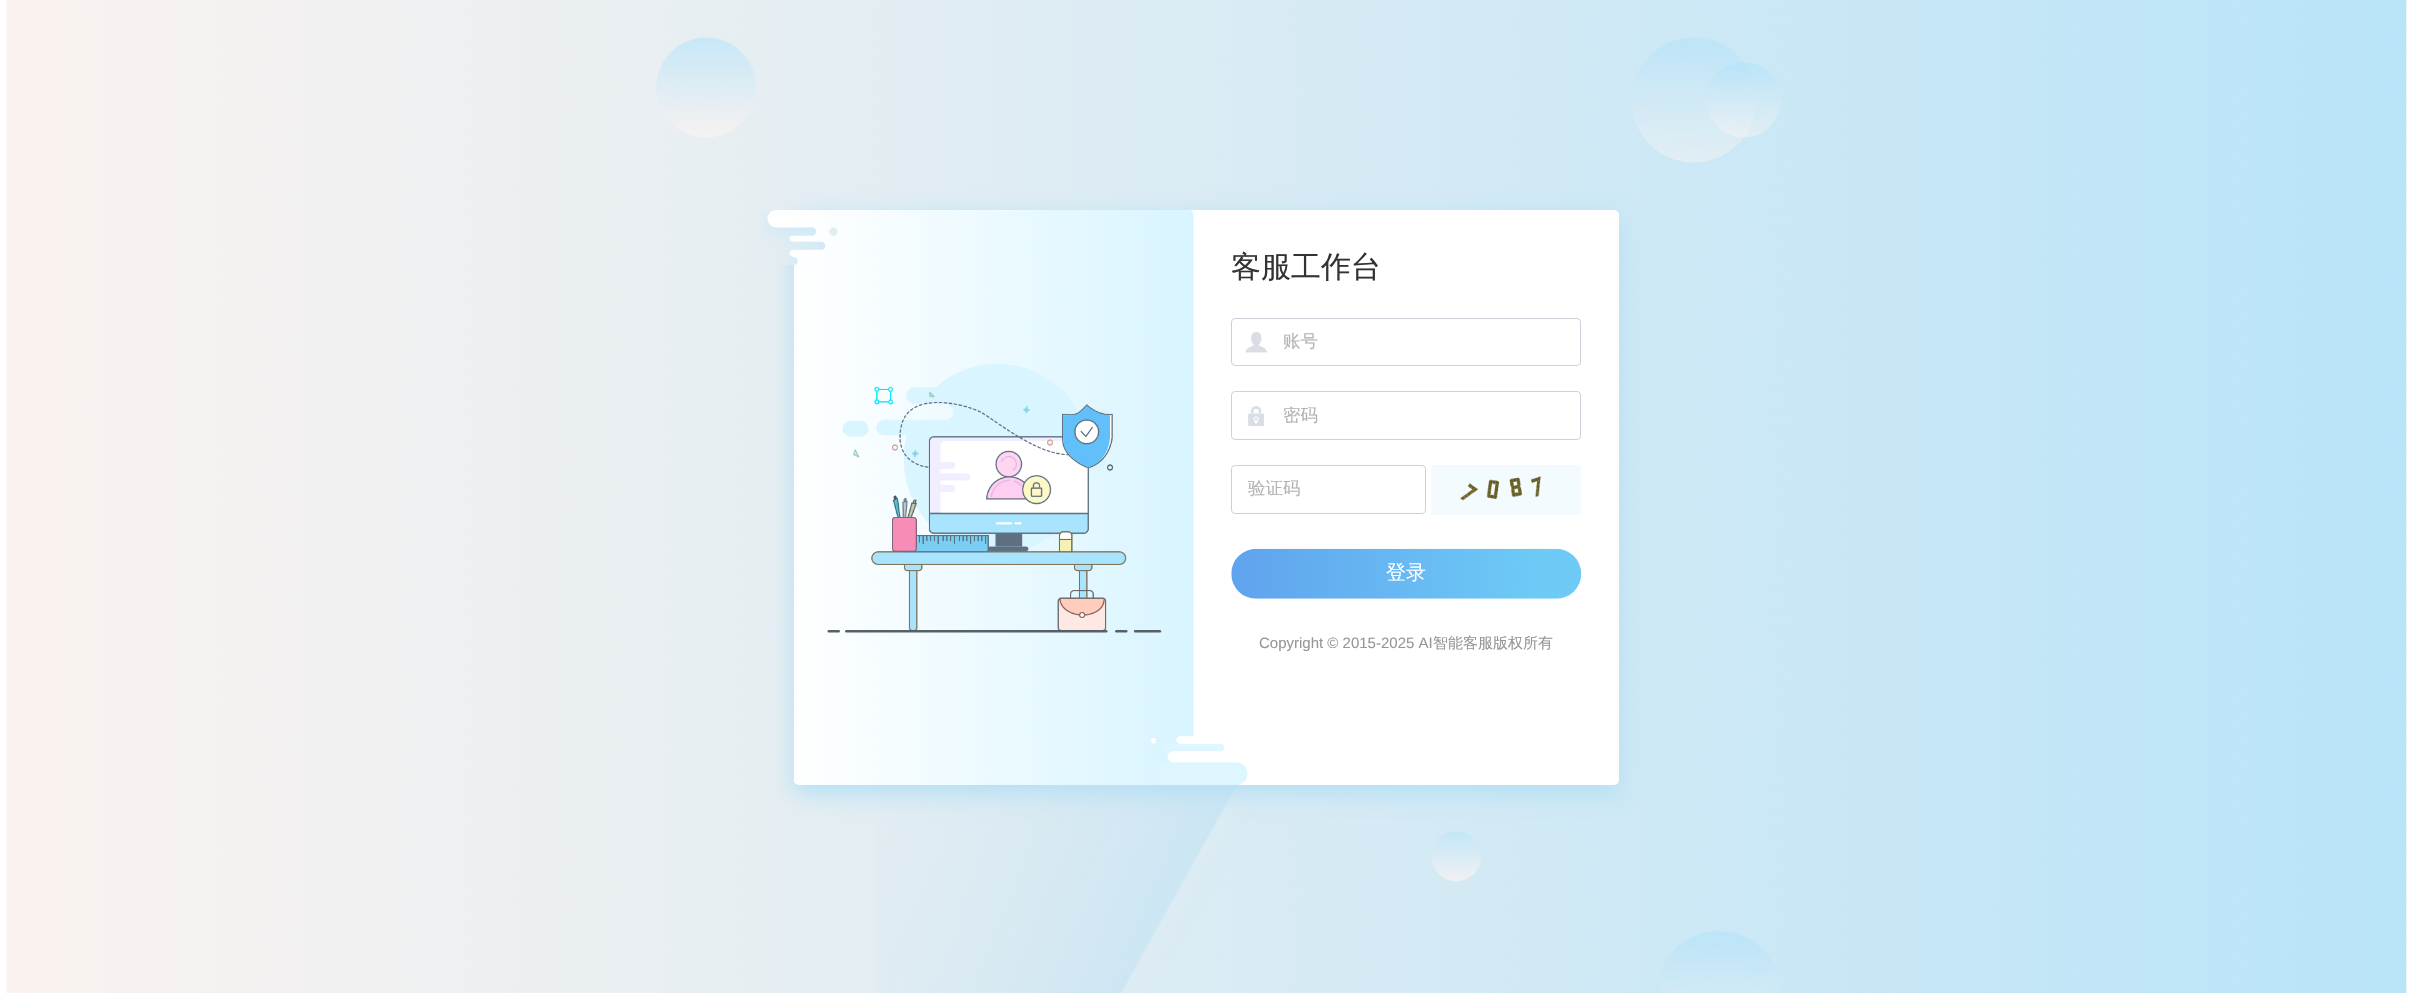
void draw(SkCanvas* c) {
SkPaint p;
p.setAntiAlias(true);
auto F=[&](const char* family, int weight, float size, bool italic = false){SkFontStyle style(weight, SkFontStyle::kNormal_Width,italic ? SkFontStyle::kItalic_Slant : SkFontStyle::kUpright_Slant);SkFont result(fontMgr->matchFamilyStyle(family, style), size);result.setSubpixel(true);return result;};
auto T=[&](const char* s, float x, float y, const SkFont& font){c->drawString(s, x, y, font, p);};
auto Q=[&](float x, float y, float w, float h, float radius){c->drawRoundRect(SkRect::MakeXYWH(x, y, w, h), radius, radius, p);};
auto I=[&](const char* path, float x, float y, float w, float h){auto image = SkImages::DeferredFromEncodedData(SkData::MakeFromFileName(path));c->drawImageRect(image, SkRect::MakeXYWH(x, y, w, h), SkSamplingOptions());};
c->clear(0xffffffff);
I("1.png",6,0,2401,993);
I("2.png",656,37,100,101);
I("3.png",1632,37,124,126);
I("4.png",1707,62,74,76);
I("5.png",876,785,387,208);
I("6.png",1431,831,50,51);
I("7.png",1661,931,119,62);
p.setColor(0xffb2dff5);
p.setMaskFilter(SkMaskFilter::MakeBlur(kNormal_SkBlurStyle, 12.5));
c->drawRoundRect(SkRect::MakeXYWH(794,218,825,575),5,5,p);
p.setMaskFilter(nullptr);
p.setColor(0xffffffff);
Q(1181,210,438,575,5);
I("8.png",794,210,400,575);
I("9.png",759,210,79,55);
I("10.png",827,363,335,270);
I("11.png",1150,736,98,49);
auto f1 = F("WenQuanYi Zen Hei",500,30);
p.setColor(0xff333333);
T("客服工作台",1231,277,f1);
p.setStroke(true);
p.setStrokeWidth(1);
p.setColor(0xffccd1d9);
c->drawRoundRect(SkRect::MakeXYWH(1231.5,318.5,349,47),3.5,3.5,p);
I("12.png",1245,332,22,21);
auto f2 = F("WenQuanYi Zen Hei",500,17.5);
p.setStroke(false);
p.setColor(0xffb3b3b3);
T("账号",1283,347,f2);
p.setStroke(true);
p.setColor(0xffccd1d9);
c->drawRoundRect(SkRect::MakeXYWH(1231.5,391.5,349,48),3.5,3.5,p);
I("13.png",1248,406,16,21);
p.setStroke(false);
p.setColor(0xffb3b3b3);
T("密码",1283,421,f2);
p.setStroke(true);
p.setColor(0xffccd1d9);
c->drawRoundRect(SkRect::MakeXYWH(1231.5,465.5,194,48),3.5,3.5,p);
p.setStroke(false);
p.setColor(0xffb3b3b3);
T("验证码",1248,494,f2);
I("14.png",1431,465,150,50);
I("15.png",1231,548,351,51);
auto f3 = F("WenQuanYi Zen Hei",500,20);
p.setColor(0xffffffff);
T("登录",1386,579,f3);
auto f4 = F("Liberation Sans",400,15);
p.setColor(0xff969696);
T("Copyright © 2015-2025 AI",1259,648,f4);
auto f5 = F("WenQuanYi Zen Hei",500,15);
T("智能客服版权所有",1433,648,f5);
}
